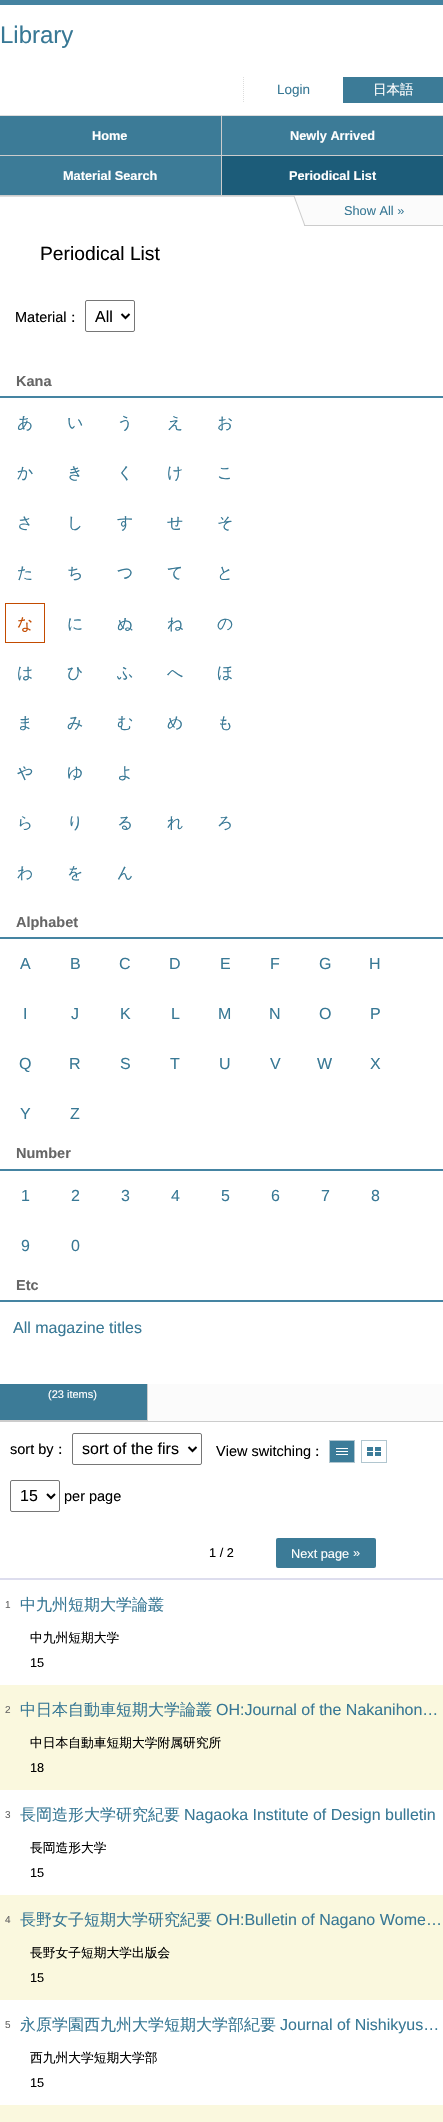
void draw(SkCanvas* c) {
SkPaint p;
p.setAntiAlias(true);
auto F=[&](const char* family, int weight, float size, bool italic = false){SkFontStyle style(weight, SkFontStyle::kNormal_Width,italic ? SkFontStyle::kItalic_Slant : SkFontStyle::kUpright_Slant);SkFont result(fontMgr->matchFamilyStyle(family, style), size);result.setSubpixel(true);return result;};
auto T=[&](const char* s, float x, float y, const SkFont& font){c->drawString(s, x, y, font, p);};
auto R=[&](float x, float y, float w, float h){c->drawRect(SkRect::MakeXYWH(x, y, w, h), p);};
auto Q=[&](float x, float y, float w, float h, float radius){c->drawRoundRect(SkRect::MakeXYWH(x, y, w, h), radius, radius, p);};
auto I=[&](const char* path, float x, float y, float w, float h){auto image = SkImages::DeferredFromEncodedData(SkData::MakeFromFileName(path));c->drawImageRect(image, SkRect::MakeXYWH(x, y, w, h), SkSamplingOptions());};
auto P=[&](const char* data, bool evenOdd = false){SkPath result = *SkParsePath::FromSVGString(data);if (evenOdd) result.setFillType(SkPathFillType::kEvenOdd);return result;};
c->clear(0xffffffff);
p.setColor(0xff4583a1);
R(0,0,443,5);
auto f1 = F("Liberation Sans",400,24);
p.setColor(0xff387895);
T("Library",0,43,f1);
p.setStroke(true);
p.setStrokeWidth(1);
p.setColor(0xffdddddd);
p.setPathEffect(SkDashPathEffect::Make({{1,1}}, 0));
c->drawPath(P("M243.5 77v26"),p);
p.setPathEffect(nullptr);
auto f2 = F("Liberation Sans",400,13.5);
p.setStroke(false);
p.setColor(0xff387895);
T("Login",277,94,f2);
p.setColor(0xff3c7b97);
R(343,77,100,26);
auto f3 = F("WenQuanYi Zen Hei",500,13.5);
p.setColor(0xffffffff);
T("日本語",373,94,f3);
p.setColor(0xffdddddd);
R(0,115,443,1);
R(0,196,295,1);
p.setColor(0xffcccccc);
R(221,116,1,80);
R(0,155,443,1);
p.setColor(0xff3c7b97);
R(0,116,221,39);
auto f4 = F("Liberation Sans",700,12.75);
p.setColor(0xffffffff);
T("Home",92,140,f4);
p.setColor(0xff3c7b97);
R(222,116,221,39);
p.setColor(0xffffffff);
T("Newly Arrived",290,140,f4);
p.setColor(0xffcccccc);
R(0,195,443,1);
p.setColor(0xff3c7b97);
R(0,156,221,39);
p.setColor(0xffffffff);
T("Material Search",63,180,f4);
p.setColor(0xff1c5c79);
R(222,156,221,39);
p.setColor(0xffffffff);
T("Periodical List",289,180,f4);
p.setColor(0xfffbfbfb);
c->drawPath(P("M294 196h149l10 30h-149z"),p);
p.setColor(0xffcccccc);
R(304,225,139,1);
c->drawPath(P("M293.5 196h1l11 30h-1z"),p);
auto f5 = F("Liberation Sans",400,12.75);
p.setColor(0xff387895);
T("Show All »",344,215,f5);
auto f6 = F("Liberation Sans",400,19.25);
p.setColor(0xff000000);
T("Periodical List",40,260,f6);
auto f7 = F("Liberation Sans",400,14.5);
T("Material",15,322,f7);
auto f8 = F("WenQuanYi Zen Hei",500,14.5);
T("：",66,322,f8);
p.setStroke(true);
p.setColor(0xff767676);
c->drawRoundRect(SkRect::MakeXYWH(85.5,300.5,49,31),1.5,1.5,p);
p.setStrokeWidth(2);
p.setColor(0xff000000);
c->drawPath(P("M121.5 314l4 4l4-4"),p);
auto f9 = F("Liberation Sans",400,16);
p.setStroke(false);
T("All",95,322,f9);
p.setColor(0xff4584a2);
R(0,396,443,2);
auto f10 = F("Liberation Sans",700,14.5);
p.setColor(0xff666666);
T("Kana",16,386,f10);
auto f11 = F("WenQuanYi Zen Hei",500,16);
p.setColor(0xff387895);
T("あ",17,428,f11);
T("い",67,428,f11);
T("う",117,428,f11);
T("え",167,428,f11);
T("お",217,428,f11);
T("か",17,478,f11);
T("き",67,478,f11);
T("く",117,478,f11);
T("け",167,478,f11);
T("こ",217,478,f11);
T("さ",17,528,f11);
T("し",67,528,f11);
T("す",117,528,f11);
T("せ",167,528,f11);
T("そ",217,528,f11);
T("た",17,578,f11);
T("ち",67,578,f11);
T("つ",117,578,f11);
T("て",167,578,f11);
T("と",217,578,f11);
p.setStroke(true);
p.setStrokeWidth(1);
p.setColor(0xffc34b00);
c->drawRect(SkRect::MakeXYWH(5.5,603.5,39,39),p);
p.setStroke(false);
T("な",17,629,f11);
p.setColor(0xff387895);
T("に",67,629,f11);
T("ぬ",117,629,f11);
T("ね",167,629,f11);
T("の",217,629,f11);
T("は",17,678,f11);
T("ひ",67,678,f11);
T("ふ",117,678,f11);
T("へ",167,678,f11);
T("ほ",217,678,f11);
T("ま",17,728,f11);
T("み",67,728,f11);
T("む",117,728,f11);
T("め",167,728,f11);
T("も",217,728,f11);
T("や",17,778,f11);
T("ゆ",67,778,f11);
T("よ",117,778,f11);
T("ら",17,828,f11);
T("り",67,828,f11);
T("る",117,828,f11);
T("れ",167,828,f11);
T("ろ",217,828,f11);
T("わ",17,878,f11);
T("を",67,878,f11);
T("ん",117,878,f11);
p.setColor(0xff4584a2);
R(0,937,443,2);
p.setColor(0xff666666);
T("Alphabet",16,927,f10);
p.setColor(0xff387895);
T("A",20,969,f9);
T("B",70,969,f9);
T("C",119,969,f9);
T("D",169,969,f9);
T("E",220,969,f9);
T("F",270,969,f9);
T("G",319,969,f9);
T("H",369,969,f9);
T("I",23,1019,f9);
T("J",71,1019,f9);
T("K",120,1019,f9);
T("L",171,1019,f9);
T("M",218,1019,f9);
T("N",269,1019,f9);
T("O",319,1019,f9);
T("P",370,1019,f9);
T("Q",19,1069,f9);
T("R",69,1069,f9);
T("S",120,1069,f9);
T("T",170,1069,f9);
T("U",219,1069,f9);
T("V",270,1069,f9);
T("W",317,1069,f9);
T("X",370,1069,f9);
T("Y",20,1119,f9);
T("Z",70,1119,f9);
p.setColor(0xff4584a2);
R(0,1169,443,2);
p.setColor(0xff666666);
T("Number",16,1158,f10);
p.setColor(0xff387895);
T("1",21,1201,f9);
T("2",71,1201,f9);
T("3",121,1201,f9);
T("4",171,1201,f9);
T("5",221,1201,f9);
T("6",271,1201,f9);
T("7",321,1201,f9);
T("8",371,1201,f9);
T("9",21,1251,f9);
T("0",71,1251,f9);
p.setColor(0xff4584a2);
R(0,1300,443,2);
p.setColor(0xff666666);
T("Etc",16,1290,f10);
p.setColor(0xff387895);
T("All magazine titles",13,1333,f9);
p.setColor(0xfffbfbfb);
R(148,1384,295,37);
p.setColor(0xffcccccc);
R(0,1421,443,1);
R(147,1384,1,37);
R(0,1420,148,1);
p.setColor(0xff3c7b97);
R(0,1384,147,36);
auto f12 = F("Liberation Sans",400,11);
p.setColor(0xffffffff);
T("(23 items)",48,1398,f12);
p.setColor(0xff000000);
T("sort by",10,1454,f7);
T("：",53,1454,f8);
p.setStroke(true);
p.setColor(0xff767676);
c->drawRoundRect(SkRect::MakeXYWH(72.5,1433.5,129,31),1.5,1.5,p);
p.setStrokeWidth(2);
p.setColor(0xff000000);
c->drawPath(P("M188.5 1447l4 4l4-4"),p);
p.setStroke(false);
T("sort of the firs",82,1454,f9);
T("View switching",216,1456,f7);
T("：",310,1456,f8);
I("1.png",329,1440,26,23);
I("2.png",361,1440,26,23);
p.setStroke(true);
p.setStrokeWidth(1);
p.setColor(0xff767676);
c->drawRoundRect(SkRect::MakeXYWH(10.5,1480.5,49,31),1.5,1.5,p);
p.setStrokeWidth(2);
p.setColor(0xff000000);
c->drawPath(P("M47 1494l4 4l4-4"),p);
p.setStroke(false);
T("15",20,1501,f9);
T("per page",64,1501,f7);
T("1 / 2",209,1557,f5);
p.setColor(0xff3c7b97);
Q(276,1538,100,30,2);
p.setColor(0xffffffff);
T("Next page",291,1558,f5);
T("»",353,1557,f5);
p.setColor(0xffddddee);
R(0,1578,443,2);
auto f13 = F("Liberation Sans",400,10);
p.setColor(0xff666666);
T("1",5,1608,f13);
p.setColor(0xff387895);
T("中九州短期大学論叢",20,1610,f11);
auto f14 = F("WenQuanYi Zen Hei",500,12.75);
p.setColor(0xff000000);
T("中九州短期大学",30,1642,f14);
T("15",30,1667,f5);
p.setColor(0xfffaf8de);
R(0,1685,443,105);
p.setColor(0xff666666);
T("2",5,1713,f13);
p.setColor(0xff387895);
T("中日本自動車短期大学論叢",20,1715,f11);
T("OH:Journal of the Nakanihon…",216,1715,f9);
p.setColor(0xff000000);
T("中日本自動車短期大学附属研究所",30,1747,f14);
T("18",30,1772,f5);
p.setColor(0xff666666);
T("3",5,1818,f13);
p.setColor(0xff387895);
T("長岡造形大学研究紀要",20,1820,f11);
T("Nagaoka Institute of Design bulletin",184,1820,f9);
p.setColor(0xff000000);
T("長岡造形大学",30,1852,f14);
T("15",30,1877,f5);
p.setColor(0xfffaf8de);
R(0,1895,443,105);
p.setColor(0xff666666);
T("4",5,1923,f13);
p.setColor(0xff387895);
T("長野女子短期大学研究紀要",20,1925,f11);
T("OH:Bulletin of Nagano Wome…",216,1925,f9);
p.setColor(0xff000000);
T("長野女子短期大学出版会",30,1957,f14);
T("15",30,1982,f5);
p.setColor(0xff666666);
T("5",5,2028,f13);
p.setColor(0xff387895);
T("永原学園西九州大学短期大学部紀要",20,2030,f11);
T("Journal of Nishikyus…",280,2030,f9);
p.setColor(0xff000000);
T("西九州大学短期大学部",30,2062,f14);
T("15",30,2087,f5);
p.setColor(0xfffaf8de);
R(0,2105,443,17);
}
